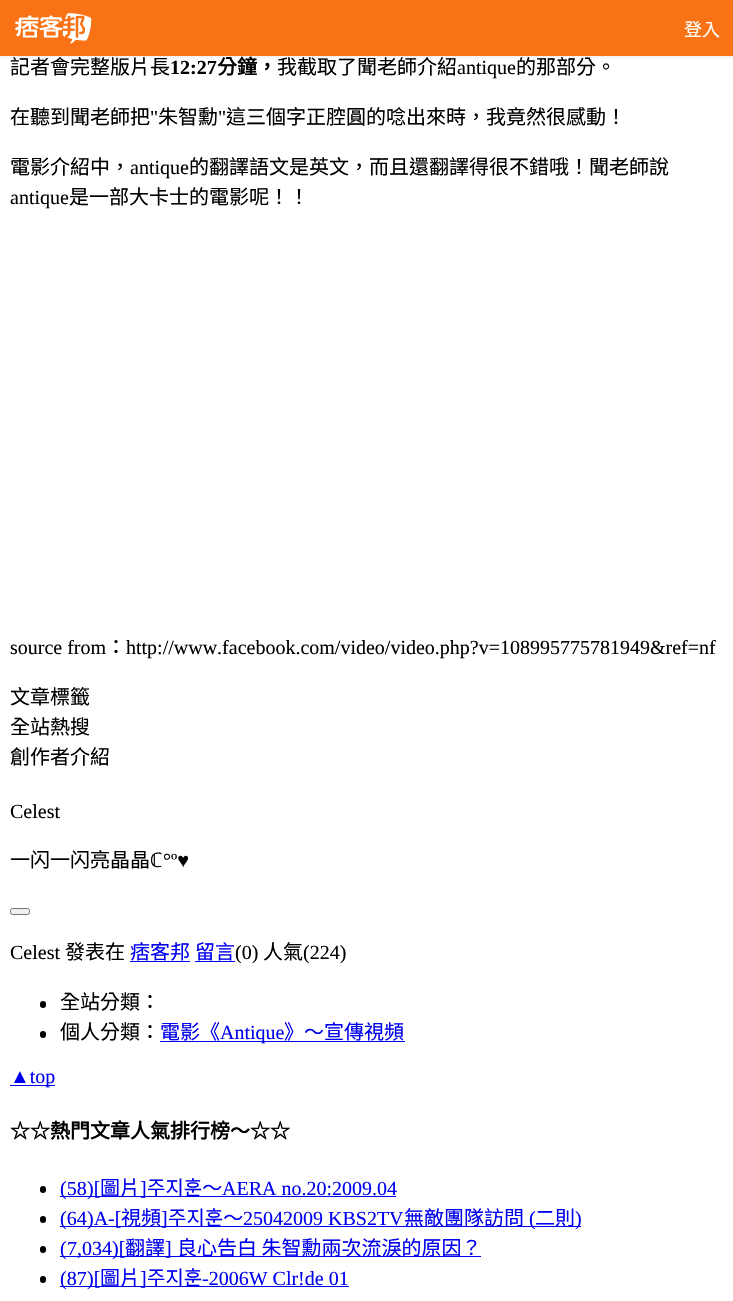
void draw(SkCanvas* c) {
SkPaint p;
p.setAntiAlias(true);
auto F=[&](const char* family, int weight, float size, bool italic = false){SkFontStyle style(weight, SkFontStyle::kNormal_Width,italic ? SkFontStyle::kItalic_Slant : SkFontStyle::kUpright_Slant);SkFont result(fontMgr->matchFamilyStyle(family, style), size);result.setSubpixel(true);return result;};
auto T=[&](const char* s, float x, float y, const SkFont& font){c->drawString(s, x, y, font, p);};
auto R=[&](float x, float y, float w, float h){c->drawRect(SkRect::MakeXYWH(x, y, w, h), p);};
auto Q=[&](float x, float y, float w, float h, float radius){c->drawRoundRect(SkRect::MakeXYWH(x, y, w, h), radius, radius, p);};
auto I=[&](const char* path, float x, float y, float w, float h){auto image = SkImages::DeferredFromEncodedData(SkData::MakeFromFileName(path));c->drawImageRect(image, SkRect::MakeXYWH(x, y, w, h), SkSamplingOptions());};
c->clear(0xffffffff);
p.setColor(0x0d000000);
p.setMaskFilter(SkMaskFilter::MakeBlur(kNormal_SkBlurStyle, 1));
c->drawRect(SkRect::MakeXYWH(0,1,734,57),p);
p.setMaskFilter(nullptr);
p.setColor(0xfff97316);
R(0,0,733,56);
I("1.png",15,13,77,31);
auto f1 = F("Noto Sans CJK TC",400,18);
p.setColor(0xffffffff);
T("登入",684,36,f1);
auto f2 = F("Noto Sans CJK TC",400,20);
p.setColor(0xff000000);
T("記者會完整版片長",10,74,f2);
auto f3 = F("Liberation Serif",700,20);
T("12:27",170,74,f3);
auto f4 = F("Noto Sans CJK TC",700,20);
T("分鐘，",217,74,f4);
T("我截取了聞老師介紹",277,74,f2);
auto f5 = F("Liberation Serif",400,20);
T("antique",457,74,f5);
T("的那部分。",516,74,f2);
T("在聽到聞老師把",10,124,f2);
T("\"",150,124,f5);
T("朱智勳",158,124,f2);
T("\"",218,124,f5);
T("這三個字正腔圓的唸出來時，我竟然很感動！",226,124,f2);
T("電影介紹中，",10,174,f2);
T("antique",130,174,f5);
T("的翻譯語文是英文，而且還翻譯得很不錯哦！聞老師說",189,174,f2);
T("antique",10,204,f5);
T("是一部大卡士的電影呢！！",69,204,f2);
T("source from",10,654,f5);
T("：",106,654,f2);
T("http://www.facebook.com/video/video.php?v=108995775781949&ref=nf",126,654,f5);
T("文章標籤",10,704,f2);
T("全站熱搜",10,734,f2);
T("創作者介紹",10,764,f2);
T("Celest",10,818,f5);
T("一闪一闪亮晶晶",10,867,f2);
auto f6 = F("Noto Sans",400,20);
T("ℂ",150,867,f6);
T("°º♥",163,867,f5);
p.setColor(0xffefefef);
c->drawRoundRect(SkRect::MakeXYWH(10.5,908.5,19,6),2,2,p);
p.setStroke(true);
p.setStrokeWidth(1);
p.setColor(0xff767676);
c->drawRoundRect(SkRect::MakeXYWH(10.5,908.5,19,6),2,2,p);
p.setStroke(false);
p.setColor(0xff000000);
T("Celest",10,959,f5);
T("發表在",65,959,f2);
p.setColor(0xff0000ee);
T("痞客邦",130,959,f2);
R(130,961,60,1);
T("留言",195,959,f2);
R(195,961,40,1);
p.setColor(0xff000000);
T("(0)",235,959,f5);
T("人氣",263,959,f2);
T("(224)",303,959,f5);
Q(40,1001,6,7,3);
T("全站分類：",60,1009,f2);
Q(40,1031,6,7,3);
T("個人分類：",60,1039,f2);
p.setColor(0xff0000ee);
T("電影《",160,1039,f2);
R(160,1041,245,1);
T("Antique",220,1039,f5);
T("》～宣傳視頻",284,1039,f2);
R(10,1085,45,1);
T("▲top",10,1083,f5);
p.setColor(0xff000000);
T("☆☆熱門文章人氣排行榜～☆☆",10,1138,f4);
Q(40,1186,6,7,3);
p.setColor(0xff0000ee);
R(60,1196,6,1);
T("(58",60,1195,f5);
R(66,1196,330,1);
T(")[",87,1195,f5);
T("圖片",100,1195,f2);
T("]",140,1195,f5);
T("주지훈～",147,1195,f2);
T("AERA no.20:2009.04",222,1195,f5);
p.setColor(0xff000000);
Q(40,1216,6,7,3);
p.setColor(0xff0000ee);
R(60,1226,6,1);
T("(64",60,1225,f5);
R(66,1226,515,1);
T(")A-[",87,1225,f5);
T("視頻",121,1225,f2);
T("]",161,1225,f5);
T("주지훈～",168,1225,f2);
T("25042009 KBS2TV",243,1225,f5);
T("無敵團隊訪問",404,1225,f2);
T("(",529,1225,f5);
T("二則",535,1225,f2);
T(")",575,1225,f5);
p.setColor(0xff000000);
Q(40,1246,6,7,3);
p.setColor(0xff0000ee);
R(60,1256,6,1);
T("(",60,1255,f5);
R(66,1256,45,1);
T("7,034",67,1255,f5);
R(111,1256,370,1);
T(")[",112,1255,f5);
T("翻譯",125,1255,f2);
T("]",165,1255,f5);
T("良心告白 朱智勳兩次流淚的原因？",177,1255,f2);
p.setColor(0xff000000);
Q(40,1276,6,7,3);
p.setColor(0xff0000ee);
R(60,1286,6,1);
T("(87",60,1285,f5);
R(66,1286,283,1);
T(")[",87,1285,f5);
T("圖片",100,1285,f2);
T("]",140,1285,f5);
T("주지훈",147,1285,f2);
T("-2006W Clr!de 01",202,1285,f5);
}
